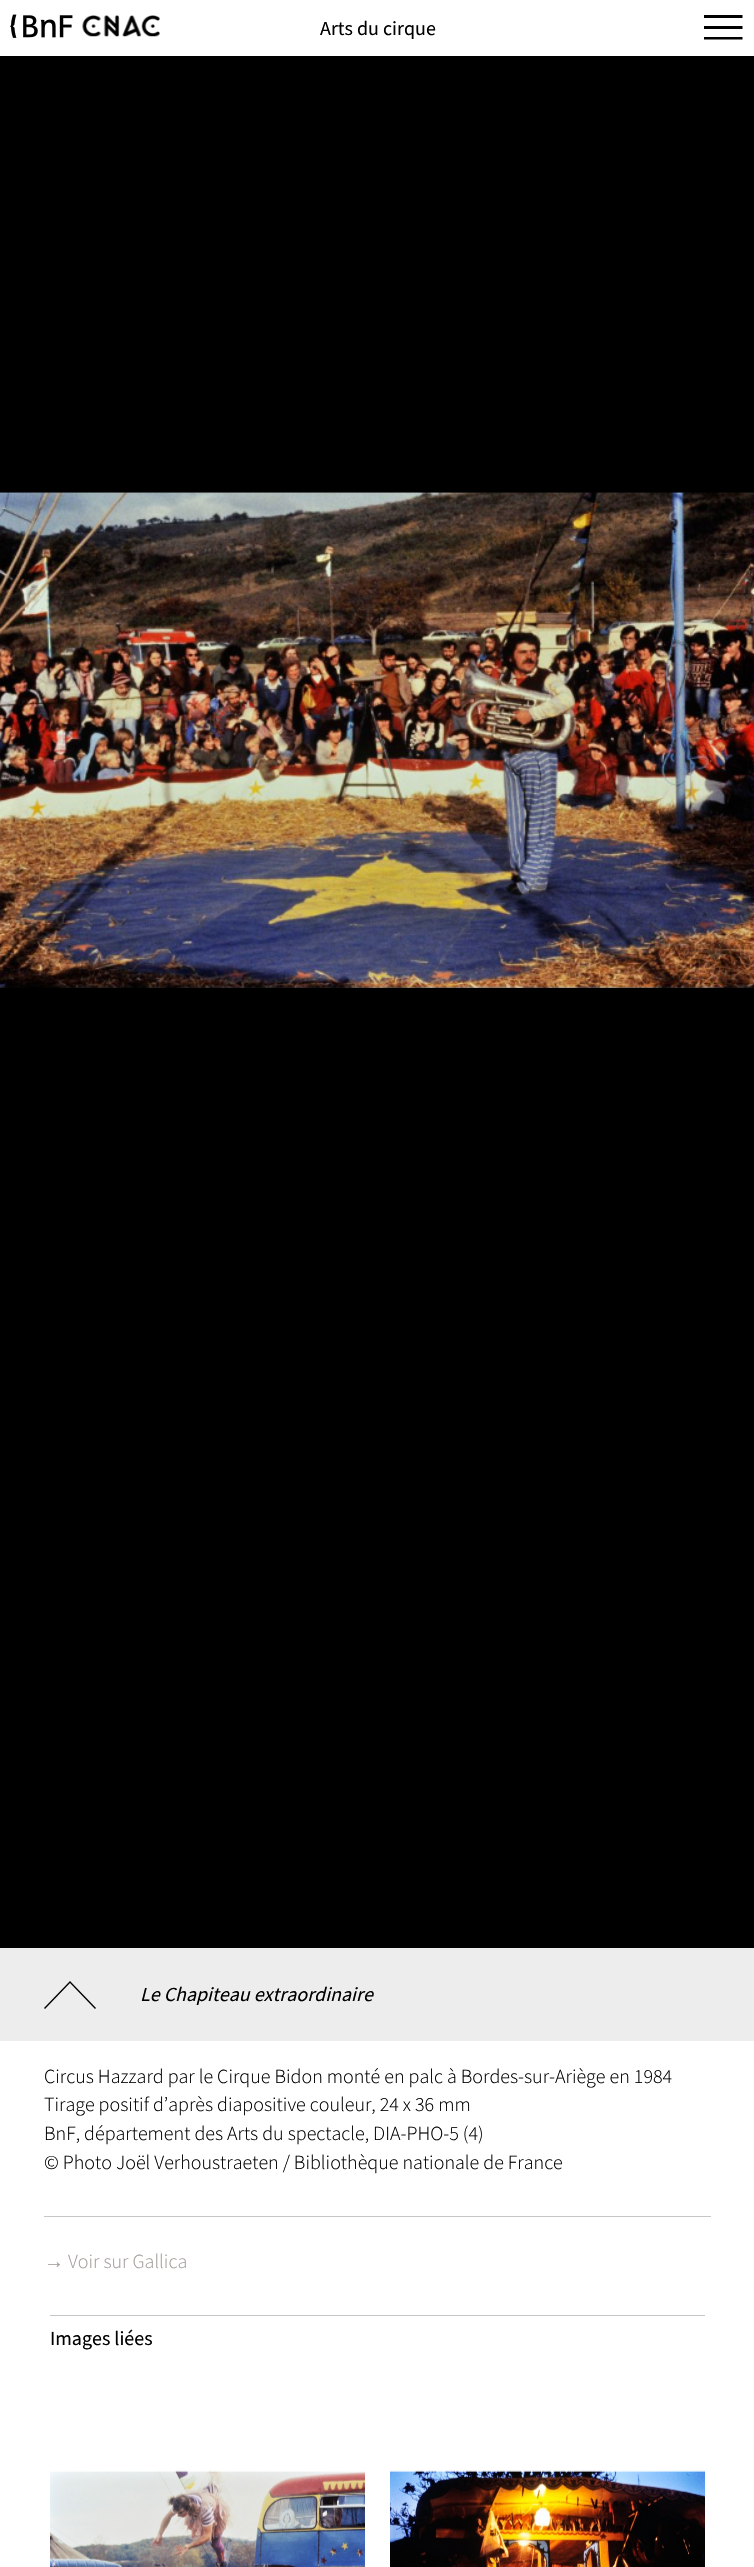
void draw(SkCanvas* c) {
SkPaint p;
p.setAntiAlias(true);
auto F=[&](const char* family, int weight, float size, bool italic = false){SkFontStyle style(weight, SkFontStyle::kNormal_Width,italic ? SkFontStyle::kItalic_Slant : SkFontStyle::kUpright_Slant);SkFont result(fontMgr->matchFamilyStyle(family, style), size);result.setSubpixel(true);return result;};
auto T=[&](const char* s, float x, float y, const SkFont& font){c->drawString(s, x, y, font, p);};
auto R=[&](float x, float y, float w, float h){c->drawRect(SkRect::MakeXYWH(x, y, w, h), p);};
auto I=[&](const char* path, float x, float y, float w, float h){auto image = SkImages::DeferredFromEncodedData(SkData::MakeFromFileName(path));c->drawImageRect(image, SkRect::MakeXYWH(x, y, w, h), SkSamplingOptions());};
auto P=[&](const char* data, bool evenOdd = false){SkPath result = *SkParsePath::FromSVGString(data);if (evenOdd) result.setFillType(SkPathFillType::kEvenOdd);return result;};
c->clear(0xffffffff);
I("1.png",10,14,63,24);
I("2.png",82,15,78,22);
auto f1 = F("Source Sans Pro",400,20);
p.setColor(0xff000000);
T("Arts du cirque",320,35,f1);
c->drawPath(P("M704 15h38.5v3h-38.5zm0 11h38.5v3h-38.5zm0 11h38.5v2.5h-38.5z"),p);
R(0,56,754,1892);
I("3.png",0,492,754,496);
I("4.png",0,492,754,496);
p.setColor(0xffededed);
R(0,1948,754,93);
p.setColor(0xff000000);
c->drawPath(P("M44 2008l26-27l26 27l-1 1l-25-26l-25 26z"),p);
auto f2 = F("Source Sans Pro",400,20,true);
T("Le Chapiteau extraordinaire",140,2001,f2);
auto f3 = F("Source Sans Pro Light",300,20);
T("Circus Hazzard par le Cirque Bidon monté en palc à Bordes-sur-Ariège en 1984",44,2083,f3);
T("Tirage positif d’après diapositive couleur, 24 x 36 mm",44,2111,f3);
T("BnF, département des Arts du spectacle, DIA-PHO-5 (4)",44,2140,f3);
T("© Photo Joël Verhoustraeten / Bibliothèque nationale de France",44,2169,f3);
p.setColor(0xffc6c6c6);
R(44,2216,667,1);
auto f4 = F("Liberation Sans",400,20);
p.setColor(0xffa39c9a);
T("→",44,2268,f4);
T("Voir sur Gallica",68,2268,f3);
p.setColor(0xffc6c6c6);
R(50,2315,655,1);
p.setColor(0xff000000);
T("Images liées",50,2345,f1);
I("5.png",50,2470,315,97);
I("6.png",390,2470,315,97);
}
